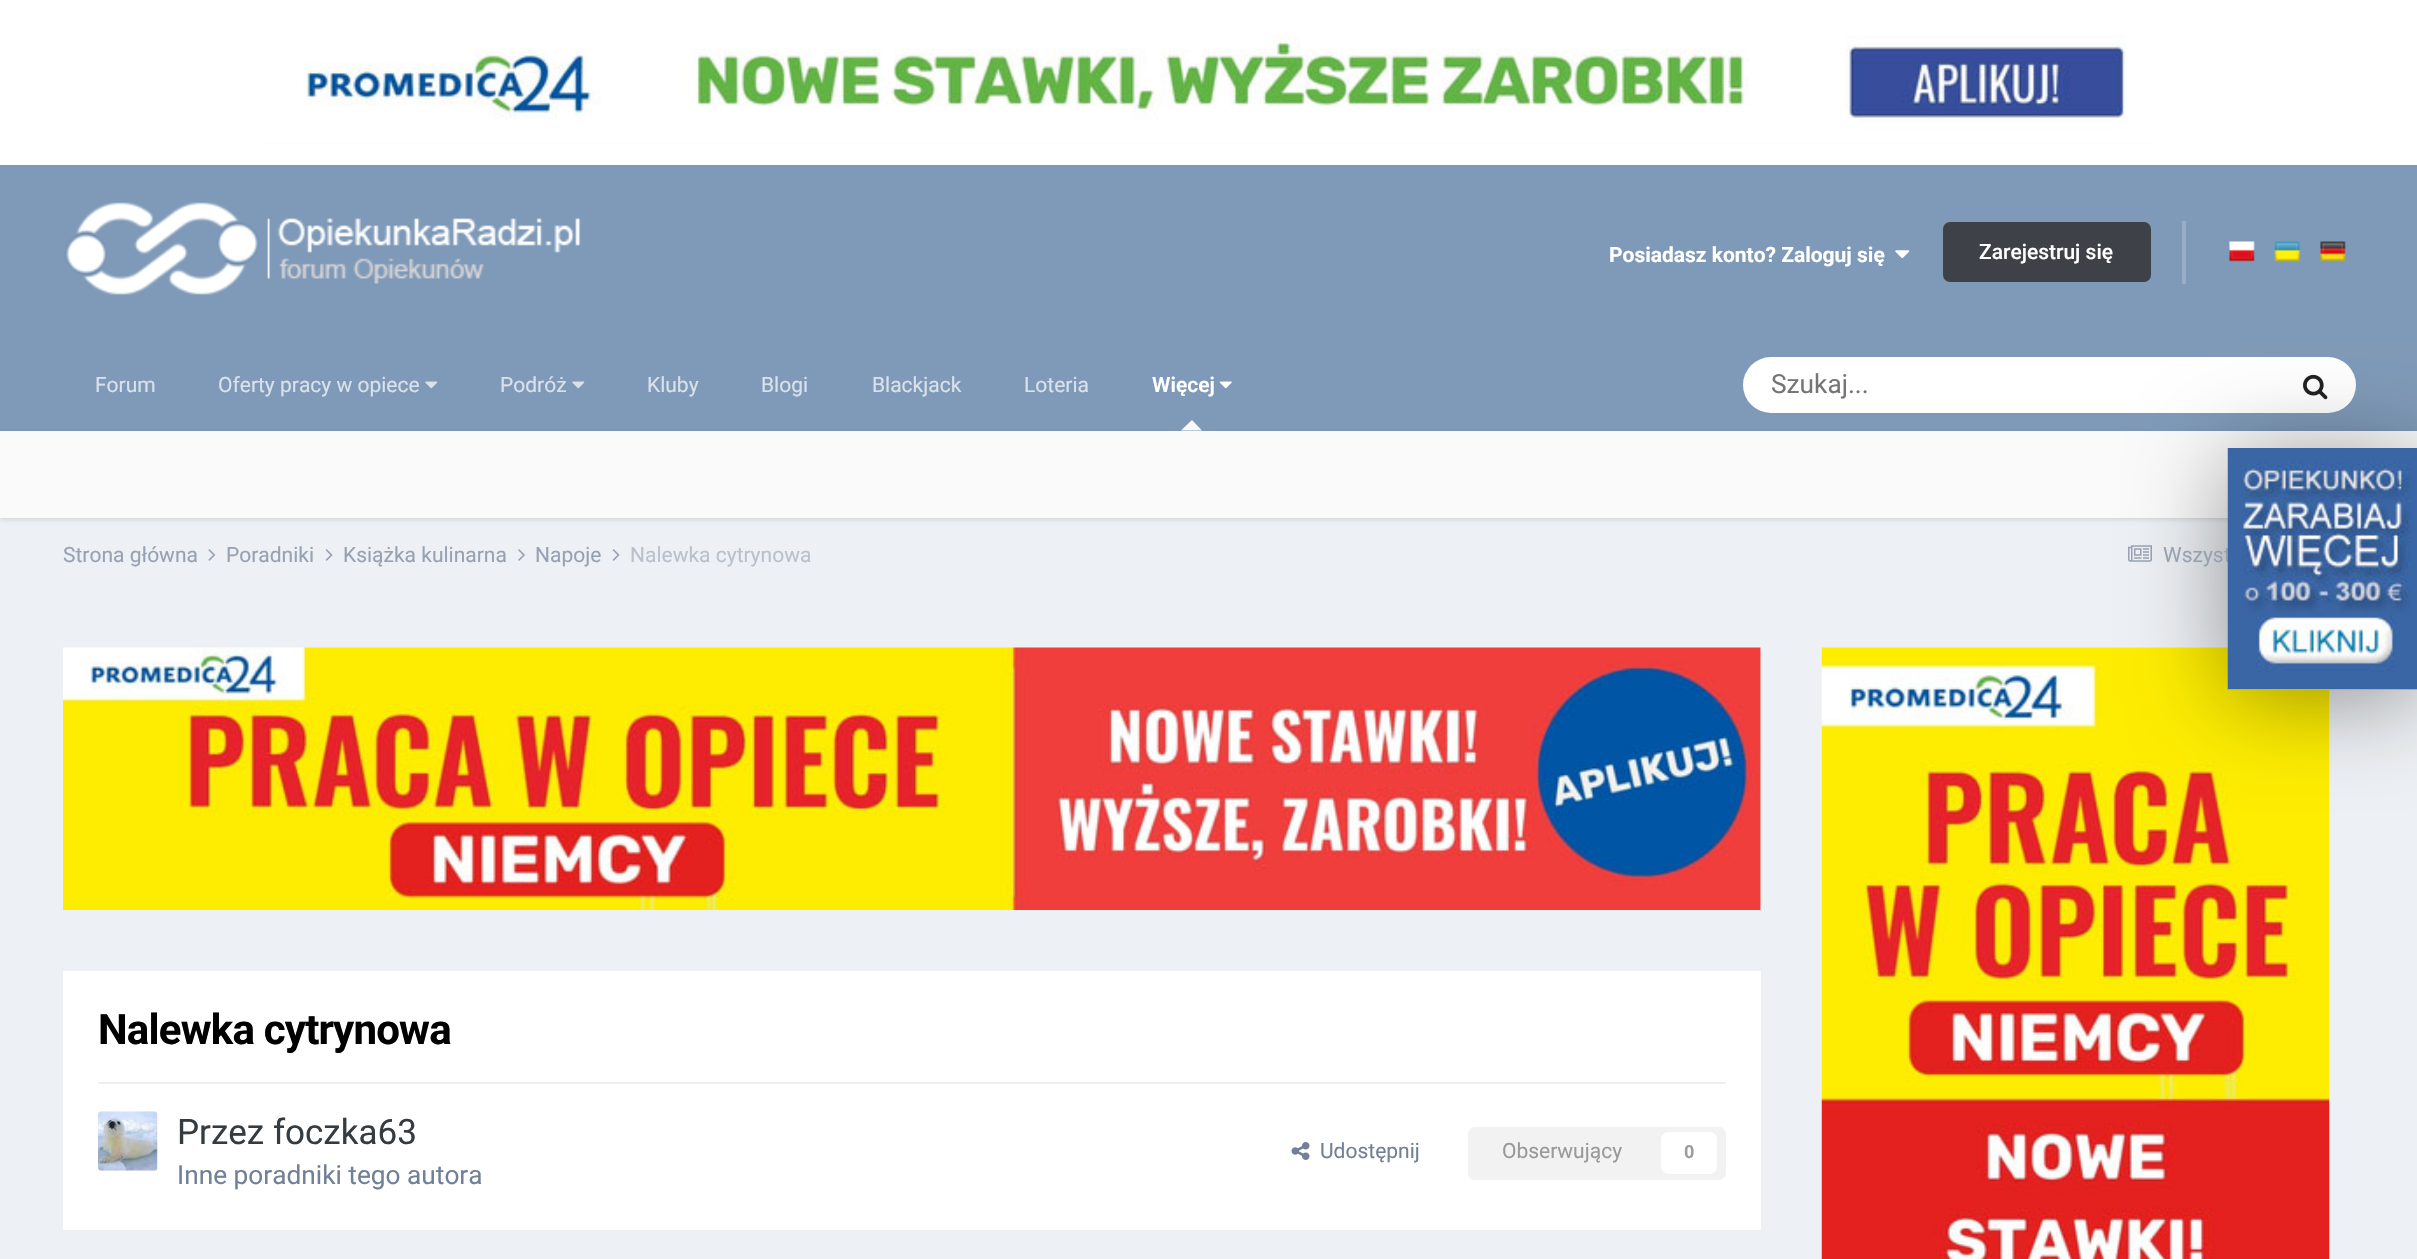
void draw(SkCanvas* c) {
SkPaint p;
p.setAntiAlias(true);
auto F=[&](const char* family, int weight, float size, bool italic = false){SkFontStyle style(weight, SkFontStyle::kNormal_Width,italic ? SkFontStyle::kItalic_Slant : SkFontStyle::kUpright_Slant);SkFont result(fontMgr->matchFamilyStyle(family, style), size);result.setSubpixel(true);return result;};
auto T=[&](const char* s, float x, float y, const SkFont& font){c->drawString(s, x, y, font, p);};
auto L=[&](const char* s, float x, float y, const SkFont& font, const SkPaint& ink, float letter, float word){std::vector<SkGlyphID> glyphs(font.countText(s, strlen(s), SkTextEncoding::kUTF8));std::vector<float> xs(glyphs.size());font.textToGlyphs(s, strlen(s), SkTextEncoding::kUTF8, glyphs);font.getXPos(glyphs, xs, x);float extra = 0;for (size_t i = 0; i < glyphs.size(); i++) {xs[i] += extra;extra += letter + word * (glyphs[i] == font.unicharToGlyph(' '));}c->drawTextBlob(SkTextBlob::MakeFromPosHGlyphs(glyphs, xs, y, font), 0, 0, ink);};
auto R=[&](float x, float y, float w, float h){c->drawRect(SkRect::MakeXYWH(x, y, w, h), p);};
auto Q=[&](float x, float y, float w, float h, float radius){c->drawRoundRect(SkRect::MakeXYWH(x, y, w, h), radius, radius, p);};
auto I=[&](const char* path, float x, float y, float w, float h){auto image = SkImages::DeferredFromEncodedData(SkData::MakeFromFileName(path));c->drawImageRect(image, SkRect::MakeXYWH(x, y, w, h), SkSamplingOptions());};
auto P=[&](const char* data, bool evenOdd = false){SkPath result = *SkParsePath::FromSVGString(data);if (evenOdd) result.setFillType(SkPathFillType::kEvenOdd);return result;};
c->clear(0xffedf0f4);
p.setColor(0xffffffff);
R(0,0,2417,165);
p.setColor(0xfff7fafc);
R(264,21,1890,123);
I("1.png",264,21,1890,123);
p.setColor(0xff7f9ab8);
R(0,165,2417,266);
I("2.png",64,202,517,93);
auto f1 = F("Roboto",700,21);
p.setColor(0xffffffff);
T("Posiadasz konto? Zaloguj się",1609,262,f1);
I("3.png",1895,250,15,9);
p.setColor(0xff3e4148);
Q(1943,222,208,60,7);
auto f2 = F("Roboto",500,21);
p.setColor(0xffffffff);
T("Zarejestruj się",1979,259,f2);
p.setColor(0xff99aec6);
R(2182,221,4,63);
I("4.png",2229,241,26,21);
I("5.png",2274,241,26,21);
I("6.png",2320,241,26,21);
auto f3 = F("Roboto",400,21);
p.setColor(0xffd9e1ea);
T("Forum",95,392,f3);
T("Oferty pracy w opiece",218,392,f3);
I("7.png",425,381,13,8);
T("Podróż",500,392,f3);
I("7.png",572,381,13,8);
T("Kluby",647,392,f3);
T("Blogi",761,392,f3);
T("Blackjack",872,392,f3);
T("Loteria",1024,392,f3);
auto f4 = F("Roboto",600,21);
p.setColor(0xffffffff);
T("Więcej",1152,392,f4);
I("8.png",1219,381,13,8);
p.setColor(0x1a000000);
p.setMaskFilter(SkMaskFilter::MakeBlur(kNormal_SkBlurStyle, 2));
c->drawRect(SkRect::MakeXYWH(0,432,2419,88),p);
p.setMaskFilter(nullptr);
p.setColor(0xfffafafa);
c->drawPath(P("M1202 430.5h-21l11-10.5z"),p);
p.setColor(0xffffffff);
Q(1743,357,613,56,28);
auto f5 = F("Roboto",400,26.25);
p.setColor(0xff757575);
T("Szukaj...",1771,393,f5);
I("9.png",2303,374,25,26);
p.setColor(0xfffafafa);
R(0,431,2417,87);
I("14.png",2128,545,24,17);
I("18.png",1821,647,509,612);
p.setColor(0x66000000);
p.setMaskFilter(SkMaskFilter::MakeBlur(kNormal_SkBlurStyle, 48));
c->drawRoundRect(SkRect::MakeXYWH(2228,457,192,241),5,5,p);
p.setMaskFilter(nullptr);
p.setColor(0xfff7fafc);
R(2228,689,189,1);
p.setColor(0xff96a2b2);
T("Wszyst",2163,562,f3);
I("10.png",2227,448,190,242);
T("Strona główna",63,562,f3);
I("11.png",208,549,8,12);
T("Poradniki",226,562,f3);
I("12.png",325,549,8,12);
T("Książka kulinarna",343,562,f3);
I("13.png",518,549,7,12);
T("Napoje",535,562,f3);
I("12.png",612,549,8,12);
p.setColor(0xffb9c1cd);
T("Nalewka cytrynowa",630,562,f3);
p.setColor(0xfff7fafc);
R(1760,648,1,262);
I("15.png",63,647,1698,263);
p.setColor(0xffffffff);
R(63,971,1698,259);
auto f6 = F("Roboto",700,42);
p.setColor(0xff000000);
L("Nalewka cytrynowa",98,1044,f6,p,-.8,0);
p.setColor(0xffefeff0);
R(98,1082,1628,2);
I("16.png",98,1111,60,60);
auto f7 = F("Roboto",400,35);
p.setColor(0xff353c41);
T("Przez foczka63",177,1144,f7);
p.setColor(0xff718096);
T("Inne poradniki tego autora",177,1184,f5);
I("17.png",1291,1142,19,18);
T("Udostępnij",1320,1158,f3);
p.setColor(0xfff2f2f2);
Q(1468,1127,258,53,7);
p.setColor(0xff999999);
T("Obserwujący",1502,1158,f3);
p.setColor(0xffffffff);
Q(1661,1132,56,42,7);
auto f8 = F("Roboto",700,18);
p.setColor(0xff9a9ea0);
T("0",1684,1158,f8);
}
